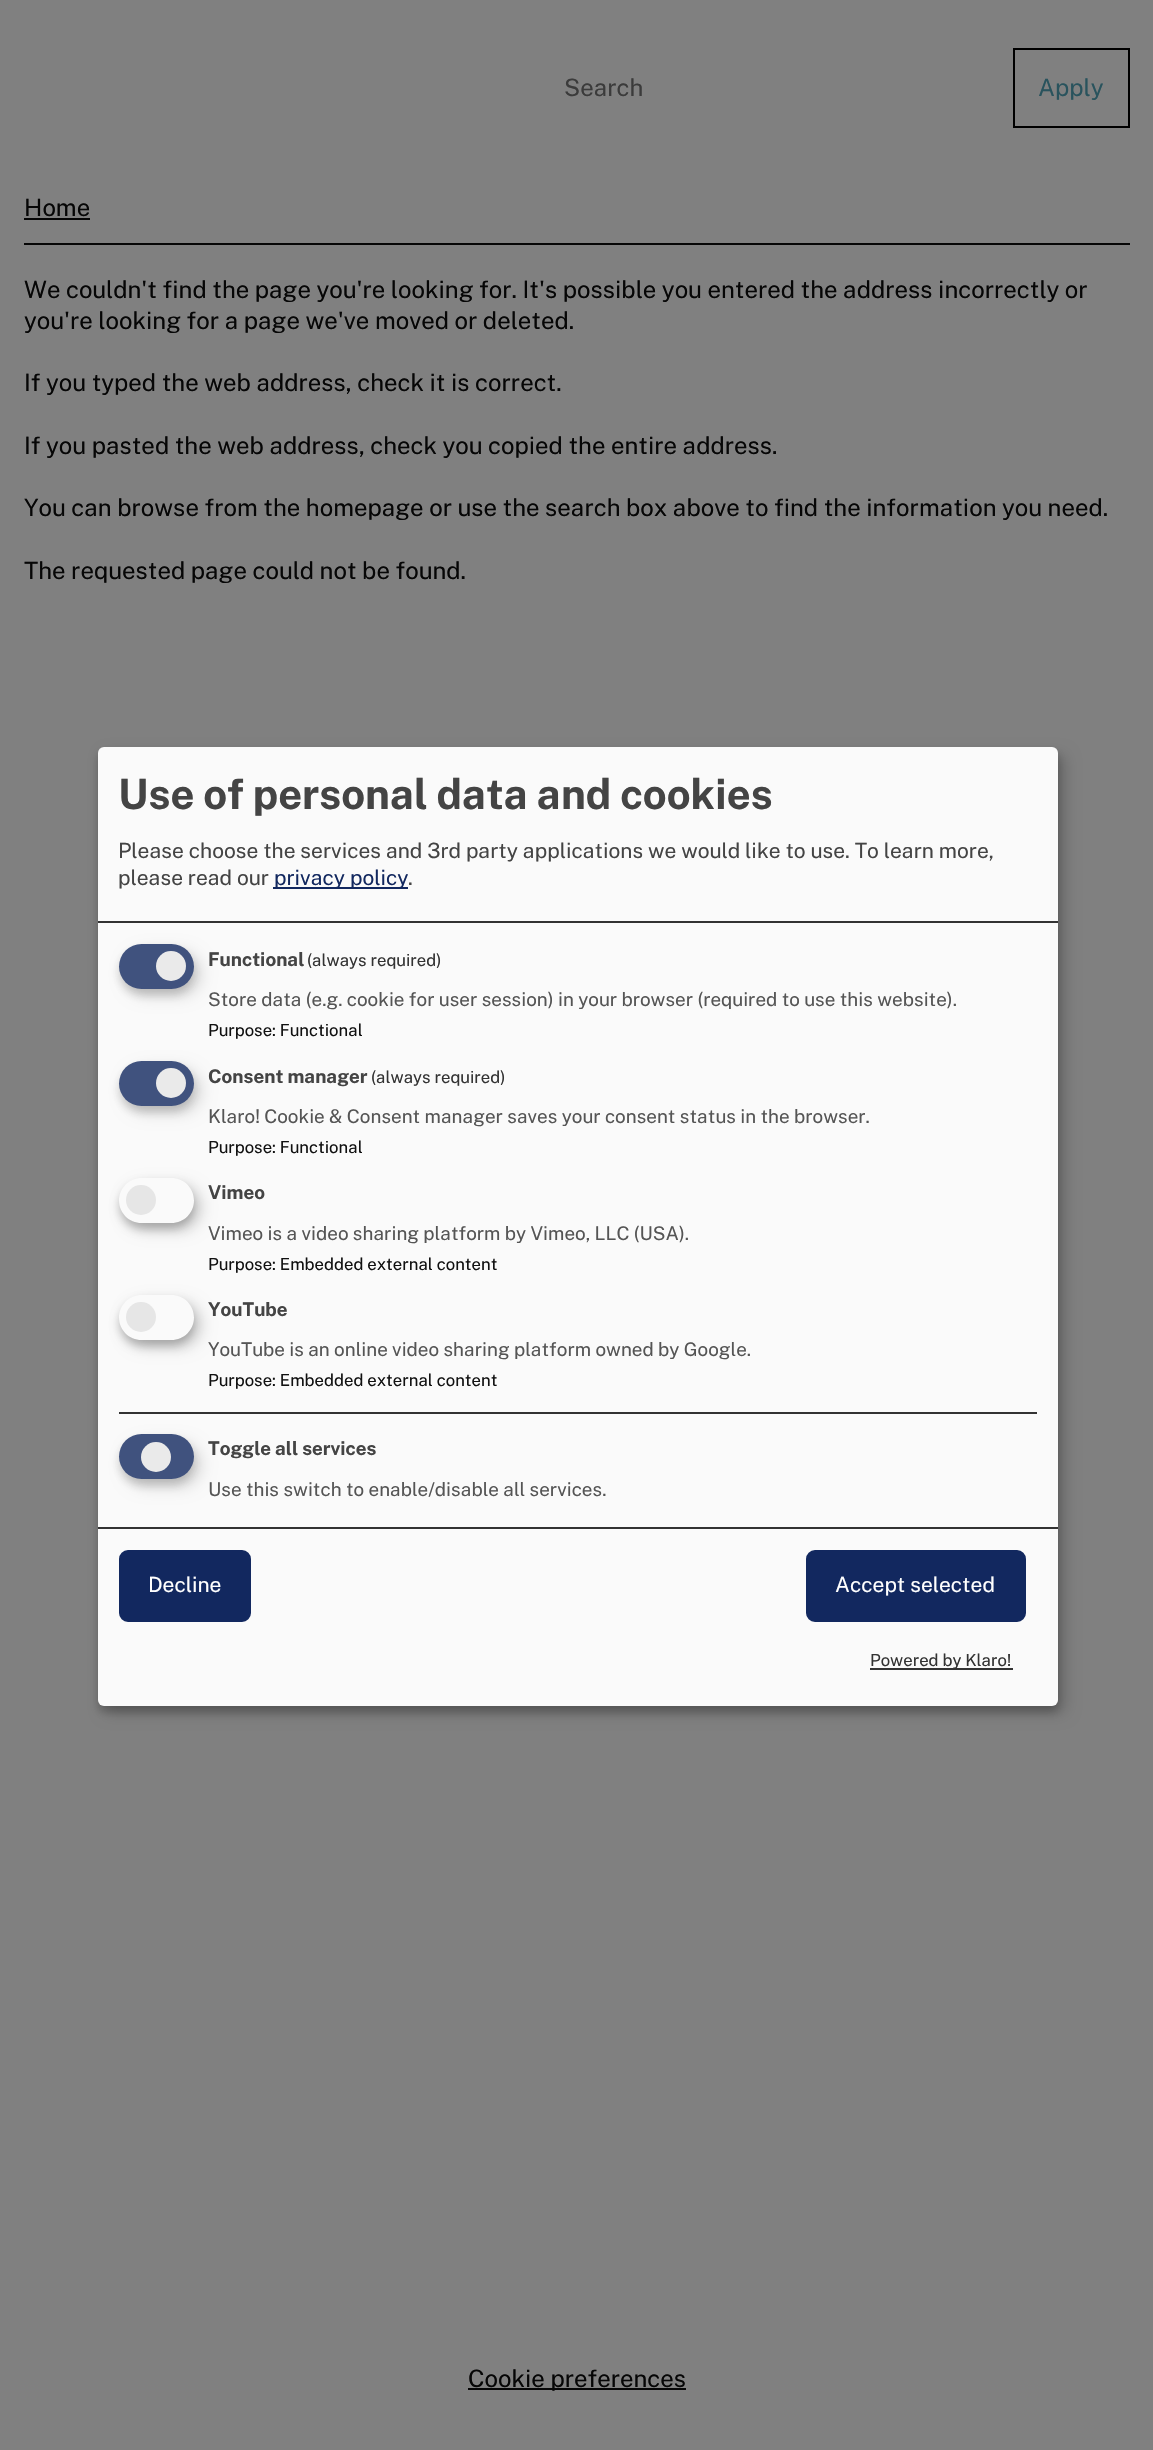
void draw(SkCanvas* c) {
SkPaint p;
p.setAntiAlias(true);
auto F=[&](const char* family, int weight, float size, bool italic = false){SkFontStyle style(weight, SkFontStyle::kNormal_Width,italic ? SkFontStyle::kItalic_Slant : SkFontStyle::kUpright_Slant);SkFont result(fontMgr->matchFamilyStyle(family, style), size);result.setSubpixel(true);return result;};
auto T=[&](const char* s, float x, float y, const SkFont& font){c->drawString(s, x, y, font, p);};
auto R=[&](float x, float y, float w, float h){c->drawRect(SkRect::MakeXYWH(x, y, w, h), p);};
auto Q=[&](float x, float y, float w, float h, float radius){c->drawRoundRect(SkRect::MakeXYWH(x, y, w, h), radius, radius, p);};
auto P=[&](const char* data, bool evenOdd = false){SkPath result = *SkParsePath::FromSVGString(data);if (evenOdd) result.setFillType(SkPathFillType::kEvenOdd);return result;};
c->clear(0xff808080);
auto f1 = F("Public Sans",100,24);
p.setColor(0xff3b3b3b);
T("Search",564,96,f1);
p.setStroke(true);
p.setStrokeWidth(2);
p.setColor(0xff000000);
c->drawRect(SkRect::MakeXYWH(1014,49,115,78),p);
p.setStroke(false);
p.setColor(0xff29535d);
T("Apply",1038,96,f1);
p.setColor(0xff060606);
R(24,243,1106,2);
T("Home",24,216,f1);
R(24,218,66,2);
T("We couldn't find the page you're looking for. It's possible you entered the address incorrectly or",24,298,f1);
T("you're looking for a page we've moved or deleted.",24,329,f1);
T("If you typed the web address, check it is correct.",24,391,f1);
T("If you pasted the web address, check you copied the entire address.",24,454,f1);
T("You can browse from the homepage or use the search box above to find the information you need.",24,516,f1);
T("The requested page could not be found.",24,579,f1);
R(468,2388,218,2);
T("Cookie preferences",468,2387,f1);
p.setColor(0x30000000);
p.setMaskFilter(SkMaskFilter::MakeBlur(kNormal_SkBlurStyle, 7.5));
c->drawRoundRect(SkRect::MakeXYWH(105,755,960,958),6,6,p);
p.setMaskFilter(nullptr);
p.setColor(0x33000000);
p.setMaskFilter(SkMaskFilter::MakeBlur(kNormal_SkBlurStyle, 4.5));
c->drawRoundRect(SkRect::MakeXYWH(98,753,960,959),6,6,p);
p.setMaskFilter(nullptr);
p.setColor(0xfffafafa);
Q(98,747,960,959,6);
p.setColor(0xff333333);
R(98,921,960,2);
auto f2 = F("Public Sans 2",100,42);
p.setColor(0xff444444);
T("Use of personal data and cookies",118,809,f2);
auto f3 = F("Public Sans",100,21);
T("Please choose the services and 3rd party applications we would like to use. To learn more,",118,858,f3);
T("please read our",118,885,f3);
p.setColor(0xff12285f);
R(273,887,135,2);
T("privacy policy",274,885,f3);
p.setColor(0xff444444);
T(".",408,885,f3);
p.setColor(0x26000000);
p.setMaskFilter(SkMaskFilter::MakeBlur(kNormal_SkBlurStyle, 7.5));
c->drawRoundRect(SkRect::MakeXYWH(126,951,75,45),22.5,22.5,p);
p.setMaskFilter(nullptr);
p.setColor(0x33323232);
p.setMaskFilter(SkMaskFilter::MakeBlur(kNormal_SkBlurStyle, 4.5));
c->drawRoundRect(SkRect::MakeXYWH(119,950,75,45),22.5,22.5,p);
p.setMaskFilter(nullptr);
p.setColor(0xff40527e);
Q(119,944,75,45,22.5);
p.setColor(0xffeaeaea);
c->drawCircle(171,966,15,p);
auto f4 = F("Public Sans 2",100,18.9);
p.setColor(0xff444444);
T("Functional",208,966,f4);
auto f5 = F("Public Sans",100,16.75);
p.setColor(0xff333333);
T("(always required)",307,966,f5);
auto f6 = F("Public Sans",100,18.9);
p.setColor(0xff555555);
T("Store data (e.g. cookie for user session) in your browser (required to use this website).",208,1006,f6);
p.setColor(0xff111111);
T("Purpose: Functional",208,1036,f5);
p.setColor(0x26000000);
p.setMaskFilter(SkMaskFilter::MakeBlur(kNormal_SkBlurStyle, 7.5));
c->drawRoundRect(SkRect::MakeXYWH(126,1068,75,45),22.5,22.5,p);
p.setMaskFilter(nullptr);
p.setColor(0x33323232);
p.setMaskFilter(SkMaskFilter::MakeBlur(kNormal_SkBlurStyle, 4.5));
c->drawRoundRect(SkRect::MakeXYWH(119,1067,75,45),22.5,22.5,p);
p.setMaskFilter(nullptr);
p.setColor(0xff40527e);
Q(119,1061,75,45,22.5);
p.setColor(0xffeaeaea);
c->drawCircle(171,1083,15,p);
p.setColor(0xff444444);
T("Consent manager",208,1083,f4);
p.setColor(0xff333333);
T("(always required)",371,1083,f5);
p.setColor(0xff555555);
T("Klaro! Cookie & Consent manager saves your consent status in the browser.",208,1123,f6);
p.setColor(0xff111111);
T("Purpose: Functional",208,1153,f5);
c->save();
c->clipPath(P("M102 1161h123v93h-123zm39.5 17h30c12.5 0 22.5 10 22.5 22.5c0 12.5-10 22.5-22.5 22.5h-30c-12.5 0-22.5-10-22.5-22.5c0-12.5 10-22.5 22.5-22.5z",true),true);
p.setColor(0x30000000);
p.setMaskFilter(SkMaskFilter::MakeBlur(kNormal_SkBlurStyle, 7.5));
c->drawRoundRect(SkRect::MakeXYWH(126,1185,75,45),22.5,22.5,p);
p.setMaskFilter(nullptr);
c->restore();
c->save();
c->clipPath(P("M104 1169h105v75h-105zm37.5 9h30c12.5 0 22.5 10 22.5 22.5c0 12.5-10 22.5-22.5 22.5h-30c-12.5 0-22.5-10-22.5-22.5c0-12.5 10-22.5 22.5-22.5z",true),true);
p.setColor(0x33000000);
p.setMaskFilter(SkMaskFilter::MakeBlur(kNormal_SkBlurStyle, 4.5));
c->drawRoundRect(SkRect::MakeXYWH(119,1184,75,45),22.5,22.5,p);
p.setMaskFilter(nullptr);
c->restore();
p.setColor(0xffe6e6e6);
c->drawCircle(141,1200,15,p);
p.setColor(0xff444444);
T("Vimeo",208,1199,f4);
p.setColor(0xff555555);
T("Vimeo is a video sharing platform by Vimeo, LLC (USA).",208,1240,f6);
p.setColor(0xff111111);
T("Purpose: Embedded external content",208,1270,f5);
c->save();
c->clipPath(P("M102 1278h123v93h-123zm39.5 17h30c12.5 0 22.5 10 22.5 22.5c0 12.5-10 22.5-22.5 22.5h-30c-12.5 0-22.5-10-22.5-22.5c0-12.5 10-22.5 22.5-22.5z",true),true);
p.setColor(0x30000000);
p.setMaskFilter(SkMaskFilter::MakeBlur(kNormal_SkBlurStyle, 7.5));
c->drawRoundRect(SkRect::MakeXYWH(126,1302,75,45),22.5,22.5,p);
p.setMaskFilter(nullptr);
c->restore();
c->save();
c->clipPath(P("M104 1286h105v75h-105zm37.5 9h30c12.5 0 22.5 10 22.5 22.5c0 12.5-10 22.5-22.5 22.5h-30c-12.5 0-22.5-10-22.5-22.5c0-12.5 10-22.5 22.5-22.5z",true),true);
p.setColor(0x33000000);
p.setMaskFilter(SkMaskFilter::MakeBlur(kNormal_SkBlurStyle, 4.5));
c->drawRoundRect(SkRect::MakeXYWH(119,1301,75,45),22.5,22.5,p);
p.setMaskFilter(nullptr);
c->restore();
p.setColor(0xffe6e6e6);
c->drawCircle(141,1317,15,p);
p.setColor(0xff444444);
T("YouTube",208,1316,f4);
p.setColor(0xff555555);
T("YouTube is an online video sharing platform owned by Google.",208,1356,f6);
p.setColor(0xff111111);
T("Purpose: Embedded external content",208,1386,f5);
p.setColor(0xff333333);
R(119,1412,918,2);
p.setColor(0x26000000);
p.setMaskFilter(SkMaskFilter::MakeBlur(kNormal_SkBlurStyle, 7.5));
c->drawRoundRect(SkRect::MakeXYWH(126,1442,75,45),22.5,22.5,p);
p.setMaskFilter(nullptr);
p.setColor(0x33323232);
p.setMaskFilter(SkMaskFilter::MakeBlur(kNormal_SkBlurStyle, 4.5));
c->drawRoundRect(SkRect::MakeXYWH(119,1440,75,45),22.5,22.5,p);
p.setMaskFilter(nullptr);
p.setColor(0xff40527e);
Q(119,1434,75,45,22.5);
p.setColor(0xffeaeaea);
c->drawCircle(156,1457,15,p);
p.setColor(0xff444444);
T("Toggle all services",208,1455,f4);
p.setColor(0xff555555);
T("Use this switch to enable/disable all services.",208,1496,f6);
p.setColor(0xff333333);
R(98,1527,960,2);
p.setColor(0xff12285f);
c->drawRoundRect(SkRect::MakeXYWH(121.5,1552.5,127,67),6.5,6.5,p);
p.setStroke(true);
p.setStrokeWidth(5);
c->drawRoundRect(SkRect::MakeXYWH(121.5,1552.5,127,67),6.5,6.5,p);
p.setStroke(false);
p.setColor(0xffffffff);
T("Decline",148,1592,f3);
p.setColor(0xff12285f);
c->drawRoundRect(SkRect::MakeXYWH(808.5,1552.5,215,67),6.5,6.5,p);
p.setStroke(true);
c->drawRoundRect(SkRect::MakeXYWH(808.5,1552.5,215,67),6.5,6.5,p);
p.setStroke(false);
p.setColor(0xffffffff);
T("Accept selected",835,1592,f3);
p.setColor(0xff333333);
R(870,1668,143,2);
T("Powered by Klaro!",870,1666,f5);
}
